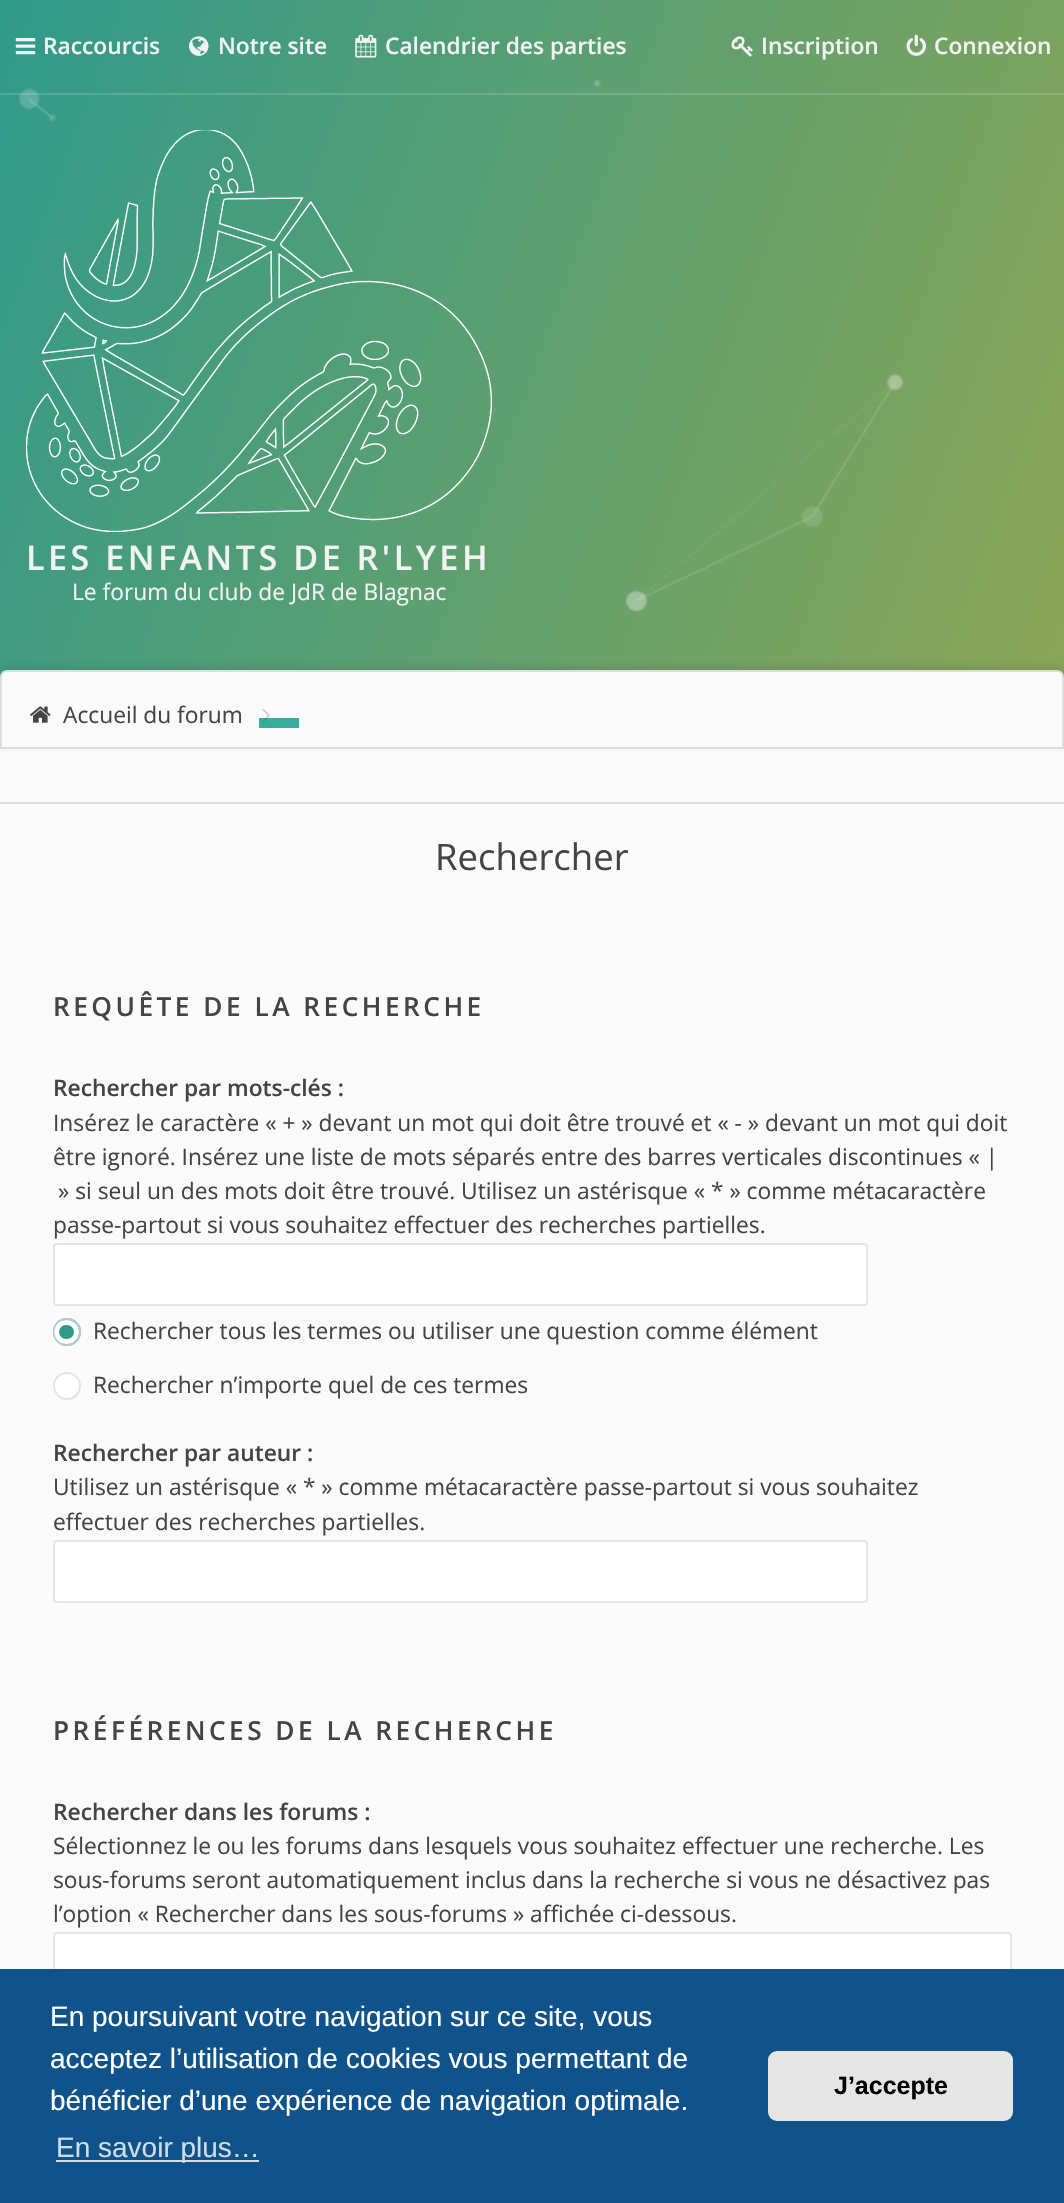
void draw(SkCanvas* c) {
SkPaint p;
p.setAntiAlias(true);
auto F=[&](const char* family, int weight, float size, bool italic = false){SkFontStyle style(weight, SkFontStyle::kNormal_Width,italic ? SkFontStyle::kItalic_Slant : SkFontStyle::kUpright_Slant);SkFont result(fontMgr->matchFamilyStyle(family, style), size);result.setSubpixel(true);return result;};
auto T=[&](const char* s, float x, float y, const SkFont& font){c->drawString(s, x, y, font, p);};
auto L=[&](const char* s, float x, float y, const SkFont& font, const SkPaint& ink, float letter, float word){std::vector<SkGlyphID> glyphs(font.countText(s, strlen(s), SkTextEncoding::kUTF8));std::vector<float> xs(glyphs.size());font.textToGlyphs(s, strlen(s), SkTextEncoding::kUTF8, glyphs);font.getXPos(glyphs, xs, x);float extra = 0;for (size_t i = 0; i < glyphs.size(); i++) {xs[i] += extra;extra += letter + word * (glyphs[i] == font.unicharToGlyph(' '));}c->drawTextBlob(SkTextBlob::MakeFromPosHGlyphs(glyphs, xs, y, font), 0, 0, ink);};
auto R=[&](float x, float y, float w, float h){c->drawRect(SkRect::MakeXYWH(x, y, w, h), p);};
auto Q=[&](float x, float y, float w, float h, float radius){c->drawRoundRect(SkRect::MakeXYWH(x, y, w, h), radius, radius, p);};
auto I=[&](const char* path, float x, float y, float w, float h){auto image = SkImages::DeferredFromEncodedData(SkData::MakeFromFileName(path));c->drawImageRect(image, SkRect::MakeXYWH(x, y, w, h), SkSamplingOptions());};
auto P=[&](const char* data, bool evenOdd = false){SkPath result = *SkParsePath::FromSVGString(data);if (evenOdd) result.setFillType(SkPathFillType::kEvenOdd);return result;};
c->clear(0xfffafafa);
{
const SkColor colors[] = {0xff319a8b,0xff8ca555};
const float stops[] = {0,1};
const SkPoint ends[] = {{-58,160}, {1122,589}};
p.setShader(SkGradientShader::MakeLinear(ends, colors, stops, 2, SkTileMode::kClamp));
p.setAlpha(255);
}
R(0,0,1064,677);
{
const SkColor colors[] = {0xff50a99c,0xff9db36f};
const float stops[] = {0,1};
const SkPoint ends[] = {{-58,160}, {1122,589}};
p.setShader(SkGradientShader::MakeLinear(ends, colors, stops, 2, SkTileMode::kClamp));
p.setAlpha(255);
}
R(0,93,1064,2);
I("1.png",15,38,21,17);
auto f1 = F("Open Sans",600,22.75);
p.setShader(nullptr);
p.setColor(0xfff2f2f2);
T("Raccourcis",43,54,f1);
I("2.png",189,36,20,20);
T("Notre site",218,54,f1);
I("3.png",355,34,22,24);
T("Calendrier des parties",385,54,f1);
I("4.png",731,36,22,21);
T("Inscription",761,54,f1);
I("5.png",906,34,20,22);
T("Connexion",934,54,f1);
I("6.png",19,80,885,532);
I("7.png",26,130,466,402);
auto f2 = F("Open Sans",600,34.1);
L("LES ENFANTS DE R'LYEH",26,570,f2,p,3.5,0);
auto f3 = F("Open Sans",400,22.75);
T("Le forum du club de JdR de Blagnac",72,600,f3);
p.setColor(0x1a000000);
p.setMaskFilter(SkMaskFilter::MakeBlur(kNormal_SkBlurStyle, 4.5));
c->drawRoundRect(SkRect::MakeXYWH(0,667,1064,79),7,7,p);
p.setMaskFilter(nullptr);
p.setColor(0xfffafafa);
c->drawPath(P("M7 671h1050c3.5 0 6 2.5 6 6v71h-1062v-71c0-3.5 2.5-6 6-6z"),p);
p.setStroke(true);
p.setStrokeWidth(2);
p.setColor(0xffdddddd);
c->drawPath(P("M7 671h1050c3.5 0 6 2.5 6 6v71h-1062v-71c0-3.5 2.5-6 6-6z"),p);
I("8.png",30,706,21,17);
p.setStroke(false);
p.setColor(0xff444444);
T("Accueil du forum",63,723,f3);
p.setColor(0xff37ad9c);
R(259,718,40,10);
I("9.png",262,709,8,13);
p.setColor(0xffdddddd);
R(0,802,1064,2);
auto f4 = F("Open Sans",400,36.5);
p.setColor(0xff444444);
T("Rechercher",435,870,f4);
auto f5 = F("Open Sans",600,26.2);
L("REQUÊTE DE LA RECHERCHE",53,1016,f5,p,3.5,0);
T("Rechercher par mots-clés :",53,1096,f1);
T("Insérez le caractère « + » devant un mot qui doit être trouvé et « - » devant un mot qui doit",53,1131,f3);
T("être ignoré. Insérez une liste de mots séparés entre des barres verticales discontinues « |",53,1165,f3);
T("» si seul un des mots doit être trouvé. Utilisez un astérisque « * » comme métacaractère",58,1199,f3);
T("passe-partout si vous souhaitez effectuer des recherches partielles.",53,1233,f3);
p.setColor(0xffffffff);
c->drawRoundRect(SkRect::MakeXYWH(54,1244,813,61),3,3,p);
p.setStroke(true);
p.setColor(0xffe5e5e5);
c->drawRoundRect(SkRect::MakeXYWH(54,1244,813,61),3,3,p);
p.setStroke(false);
p.setColor(0xff319a8b);
c->drawCircle(67,1332,14,p);
p.setStroke(true);
p.setStrokeWidth(5);
p.setColor(0xffffffff);
c->drawRoundRect(SkRect::MakeXYWH(56.5,1322.5,20,19),9.5,9.5,p);
p.setStrokeWidth(2);
p.setColor(0xbfdddddd);
c->drawCircle(67,1332,13,p);
p.setStroke(false);
p.setColor(0xff444444);
T("Rechercher tous les termes ou utiliser une question comme élément",93,1339,f3);
p.setColor(0xffffffff);
c->drawCircle(67,1386,13,p);
p.setStroke(true);
p.setColor(0xffe5e5e5);
c->drawCircle(67,1386,13,p);
p.setStroke(false);
p.setColor(0xff444444);
T("Rechercher n’importe quel de ces termes",93,1393,f3);
T("Rechercher par auteur :",53,1461,f1);
T("Utilisez un astérisque « * » comme métacaractère passe-partout si vous souhaitez",53,1495,f3);
T("effectuer des recherches partielles.",53,1530,f3);
p.setColor(0xffffffff);
c->drawRoundRect(SkRect::MakeXYWH(54,1541,813,61),3,3,p);
p.setStroke(true);
p.setColor(0xffe5e5e5);
c->drawRoundRect(SkRect::MakeXYWH(54,1541,813,61),3,3,p);
p.setStroke(false);
p.setColor(0xff444444);
L("PRÉFÉRENCES DE LA RECHERCHE",53,1740,f5,p,3.5,0);
T("Rechercher dans les forums :",53,1820,f1);
T("Sélectionnez le ou les forums dans lesquels vous souhaitez effectuer une recherche. Les",53,1854,f3);
T("sous-forums seront automatiquement inclus dans la recherche si vous ne désactivez pas",53,1888,f3);
T("l’option « Rechercher dans les sous-forums » affichée ci-dessous.",53,1922,f3);
p.setColor(0xffffffff);
c->drawRoundRect(SkRect::MakeXYWH(54,1933,957,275),3,3,p);
p.setStroke(true);
p.setColor(0xffe5e5e5);
c->drawRoundRect(SkRect::MakeXYWH(54,1933,957,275),3,3,p);
p.setStroke(false);
p.setColor(0xff0f538a);
R(0,1969,1064,234);
auto f6 = F("Liberation Sans",400,28);
p.setColor(0xffffffff);
T("En poursuivant votre navigation sur ce site, vous",50,2026,f6);
T("acceptez l’utilisation de cookies vous permettant de",50,2068,f6);
T("bénéficier d’une expérience de navigation optimale.",50,2110,f6);
p.setColor(0xffcfdde8);
R(56,2160,203,2);
T("En savoir plus…",56,2157,f6);
p.setColor(0xffe5e5e5);
Q(768,2051,245,70,9);
auto f7 = F("Liberation Sans",700,25);
p.setColor(0xff000000);
T("J’accepte",834,2094,f7);
}
